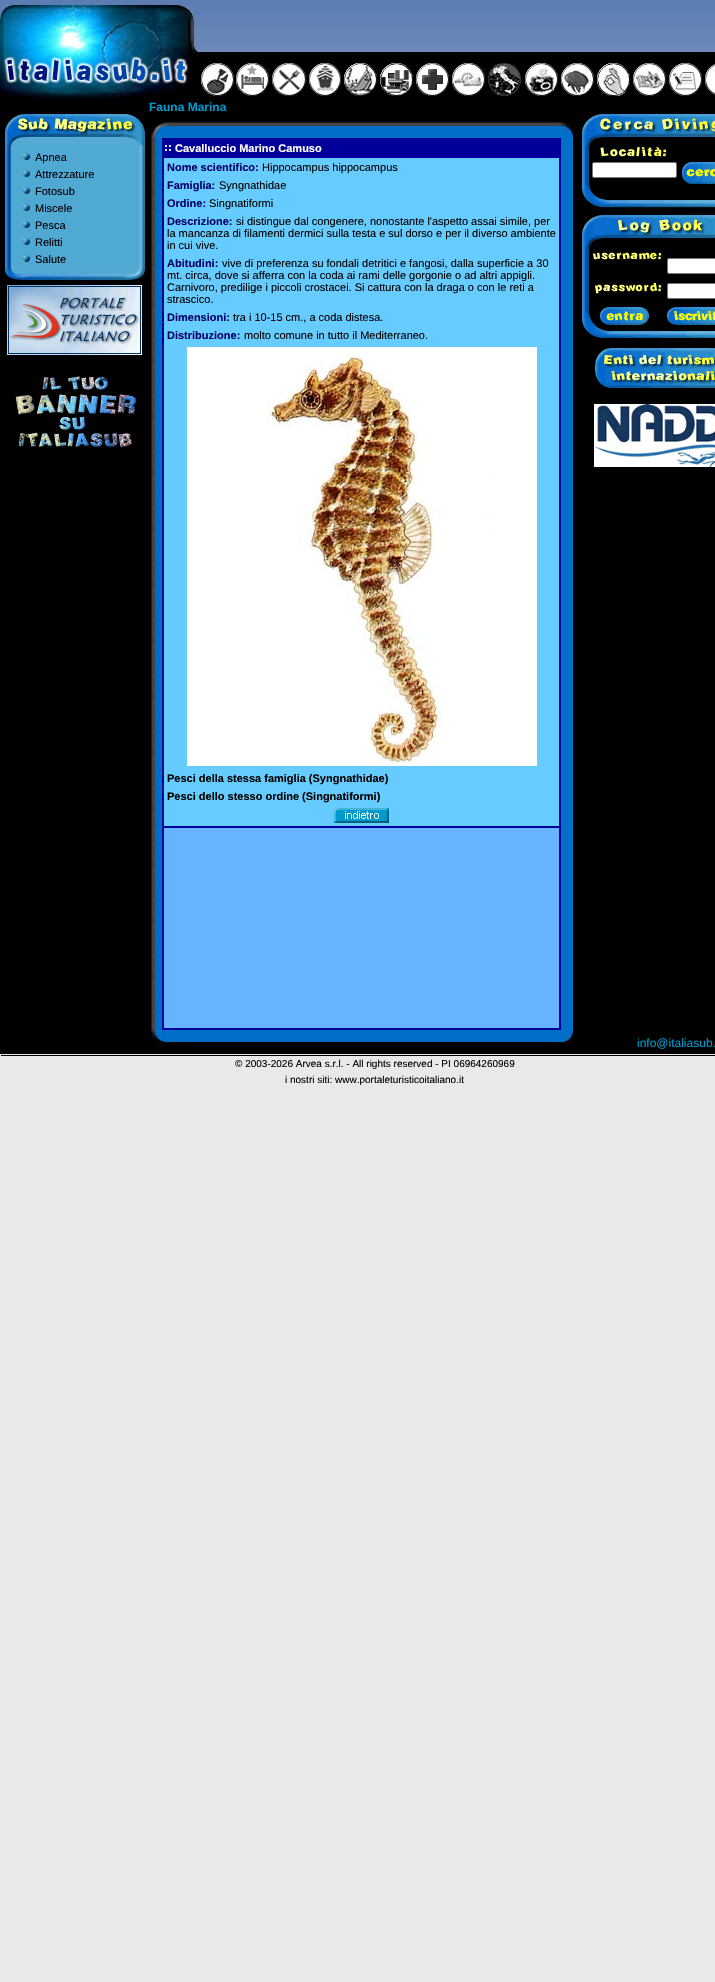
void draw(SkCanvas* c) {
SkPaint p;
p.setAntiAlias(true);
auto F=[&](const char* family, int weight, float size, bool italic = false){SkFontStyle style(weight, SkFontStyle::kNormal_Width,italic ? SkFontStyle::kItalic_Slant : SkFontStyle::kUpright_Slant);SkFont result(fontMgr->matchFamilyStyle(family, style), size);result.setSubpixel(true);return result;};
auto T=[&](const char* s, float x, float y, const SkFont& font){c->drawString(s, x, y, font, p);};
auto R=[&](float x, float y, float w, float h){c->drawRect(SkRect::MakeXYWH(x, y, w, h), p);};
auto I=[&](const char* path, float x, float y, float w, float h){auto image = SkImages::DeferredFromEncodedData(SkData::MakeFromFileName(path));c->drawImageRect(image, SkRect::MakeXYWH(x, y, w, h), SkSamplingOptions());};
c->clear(0xffe8e9ea);
I("1.png",0,0,715,5);
p.setColor(0xff000000);
R(0,52,715,1002);
I("2.png",0,5,199,94);
I("3.png",199,5,516,47);
I("4.png",201,63,33,33);
I("5.png",236,63,33,33);
I("6.png",272,63,34,33);
I("7.png",309,63,32,33);
I("8.png",344,63,33,33);
I("9.png",380,63,33,33);
I("10.png",416,63,33,33);
I("11.png",452,63,33,33);
I("12.png",488,63,34,33);
I("13.png",525,63,33,33);
I("14.png",561,63,33,33);
I("15.png",597,63,33,33);
I("16.png",633,63,33,33);
I("17.png",669,63,33,33);
I("18.png",705,64,10,31);
auto f1 = F("Liberation Sans",700,12);
p.setColor(0xff0099cc);
T("Fauna Marina",149,111,f1);
I("19.png",5,146,140,119);
I("20.png",5,114,140,32);
I("21.png",23,153,7,7);
auto f2 = F("Liberation Sans",400,11);
p.setColor(0xff000000);
T("Apnea",35,161,f2);
I("21.png",23,170,7,7);
T("Attrezzature",35,178,f2);
I("21.png",23,187,7,7);
T("Fotosub",35,195,f2);
I("21.png",23,204,7,7);
T("Miscele",35,212,f2);
I("21.png",23,221,7,7);
T("Pesca",35,229,f2);
I("21.png",23,238,7,7);
T("Relitti",35,246,f2);
I("21.png",23,255,7,7);
T("Salute",35,263,f2);
I("22.png",5,265,140,15);
I("23.png",7,285,135,70);
I("24.png",15,376,121,71);
I("25.png",149,138,424,892);
I("26.png",149,114,424,24);
p.setStroke(true);
p.setStrokeWidth(1);
p.setColor(0xff000099);
c->drawRect(SkRect::MakeXYWH(162.5,138.5,398,891),p);
p.setStroke(false);
R(163,139,397,18);
I("27.png",165,145,6,6);
auto f3 = F("Liberation Sans",700,11);
p.setColor(0xffffffff);
T("Cavalluccio Marino Camuso",175,152,f3);
p.setStroke(true);
p.setColor(0xff000099);
c->drawRect(SkRect::MakeXYWH(163.5,157.5,396,669),p);
p.setStroke(false);
p.setColor(0xff66ccff);
R(164,158,395,668);
p.setColor(0xff000066);
T("Nome scientifico:",167,171,f3);
p.setColor(0xff000000);
T("Hippocampus hippocampus",262,171,f2);
p.setColor(0xff000066);
T("Famiglia:",167,189,f3);
p.setColor(0xff000000);
T("Syngnathidae",219,189,f2);
p.setColor(0xff000066);
T("Ordine:",167,207,f3);
p.setColor(0xff000000);
T("Singnatiformi",209,207,f2);
p.setColor(0xff000066);
T("Descrizione:",167,225,f3);
p.setColor(0xff000000);
T("si distingue dal congenere, nonostante l'aspetto assai simile, per",236,225,f2);
T("la mancanza di filamenti dermici sulla testa e sul dorso e per il diverso ambiente",167,237,f2);
T("in cui vive.",167,249,f2);
p.setColor(0xff000066);
T("Abitudini:",167,267,f3);
p.setColor(0xff000000);
T("vive di preferenza su fondali detritici e fangosi, dalla superficie a 30",222,267,f2);
T("mt. circa, dove si afferra con la coda ai rami delle gorgonie o ad altri appigli.",167,279,f2);
T("Carnivoro, predilige i piccoli crostacei. Si cattura con la draga o con le reti a",167,291,f2);
T("strascico.",167,303,f2);
p.setColor(0xff000066);
T("Dimensioni:",167,321,f3);
p.setColor(0xff000000);
T("tra i 10-15 cm., a coda distesa.",233,321,f2);
p.setColor(0xff000066);
T("Distribuzione:",167,339,f3);
p.setColor(0xff000000);
T("molto comune in tutto il Mediterraneo.",244,339,f2);
I("28.png",187,347,350,419);
T("Pesci della stessa famiglia (Syngnathidae)",167,782,f3);
T("Pesci dello stesso ordine (Singnatiformi)",167,800,f3);
I("29.png",334,808,55,15);
p.setColor(0xff66b3ff);
c->drawRect(SkRect::MakeXYWH(163.5,827.5,396,201),p);
p.setStroke(true);
p.setColor(0xff000099);
c->drawRect(SkRect::MakeXYWH(163.5,827.5,396,201),p);
I("30.png",582,114,133,94);
p.setStroke(false);
p.setColor(0xffffffff);
c->drawRoundRect(SkRect::MakeXYWH(592.5,162.5,84,15),1.5,1.5,p);
p.setStroke(true);
p.setColor(0xff767676);
c->drawRoundRect(SkRect::MakeXYWH(592.5,162.5,84,15),1.5,1.5,p);
I("31.png",682,162,33,22);
I("32.png",582,215,133,123);
p.setStroke(false);
p.setColor(0xffffffff);
c->drawRoundRect(SkRect::MakeXYWH(667.5,258.5,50,15),1.5,1.5,p);
p.setStroke(true);
p.setColor(0xff767676);
c->drawRoundRect(SkRect::MakeXYWH(667.5,258.5,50,15),1.5,1.5,p);
p.setStroke(false);
p.setColor(0xffffffff);
c->drawRoundRect(SkRect::MakeXYWH(667.5,283.5,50,15),1.5,1.5,p);
p.setStroke(true);
p.setColor(0xff767676);
c->drawRoundRect(SkRect::MakeXYWH(667.5,283.5,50,15),1.5,1.5,p);
I("33.png",600,307,49,18);
I("34.png",667,307,48,18);
I("35.png",595,348,120,40);
I("36.png",594,404,121,63);
I("37.png",149,1030,424,16);
auto f4 = F("Liberation Sans",400,12);
p.setStroke(false);
p.setColor(0xff0099cc);
T("info@italiasub.",637,1047,f4);
p.setColor(0xff000000);
R(1,1055,714,1);
auto f5 = F("Liberation Sans",400,10);
T("© 2003-2026 Arvea s.r.l. - All rights reserved - PI 06964260969",235,1067,f5);
T("i nostri siti: www.portaleturisticoitaliano.it",285,1083,f5);
}
